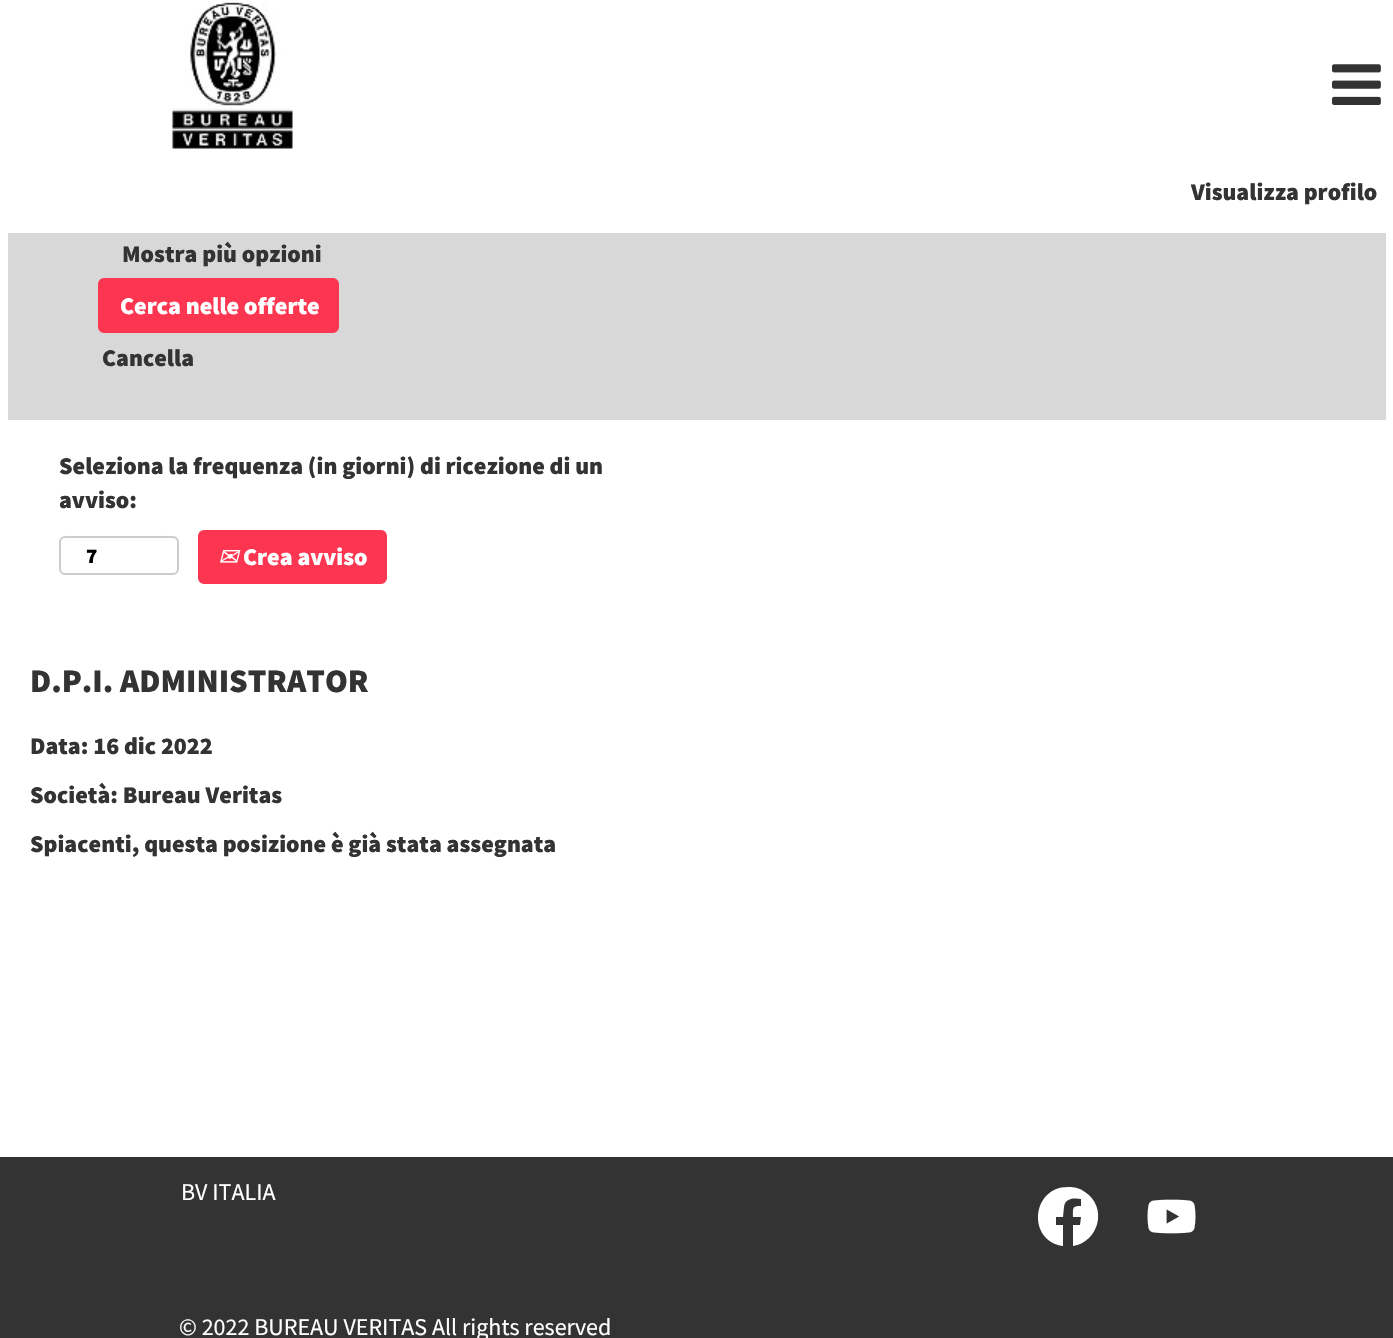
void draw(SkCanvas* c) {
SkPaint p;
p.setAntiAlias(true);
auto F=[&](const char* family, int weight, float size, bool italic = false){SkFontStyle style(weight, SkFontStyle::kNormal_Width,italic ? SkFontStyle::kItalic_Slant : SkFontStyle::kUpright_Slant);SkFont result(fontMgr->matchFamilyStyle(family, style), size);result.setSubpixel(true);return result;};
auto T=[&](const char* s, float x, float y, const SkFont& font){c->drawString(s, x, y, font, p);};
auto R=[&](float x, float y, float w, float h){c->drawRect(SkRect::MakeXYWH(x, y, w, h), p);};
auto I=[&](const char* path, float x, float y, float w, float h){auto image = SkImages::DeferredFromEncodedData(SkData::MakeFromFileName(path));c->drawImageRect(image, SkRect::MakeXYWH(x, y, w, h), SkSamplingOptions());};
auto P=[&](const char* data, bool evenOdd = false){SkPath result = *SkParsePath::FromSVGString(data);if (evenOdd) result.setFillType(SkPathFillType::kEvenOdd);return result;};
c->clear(0xffffffff);
I("1.png",172,2,121,147);
I("2.png",1332,64,49,41);
auto f1 = F("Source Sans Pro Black",900,24);
p.setColor(0xff333333);
T("Visualizza profilo",1191,200,f1);
p.setColor(0xffd8d8d8);
R(8,233,1378,187);
p.setColor(0xff333333);
T("Mostra più opzioni",122,262,f1);
p.setColor(0xfffc3650);
c->drawRoundRect(SkRect::MakeXYWH(99,279,239,53),5,5,p);
p.setStroke(true);
p.setStrokeWidth(2);
c->drawRoundRect(SkRect::MakeXYWH(99,279,239,53),5,5,p);
p.setStroke(false);
p.setColor(0xffffffff);
T("Cerca nelle offerte",120,314,f1);
p.setColor(0xff333333);
T("Cancella",102,366,f1);
T("Seleziona la frequenza (in giorni) di ricezione di un",59,474,f1);
T("avviso:",59,508,f1);
p.setColor(0xffececec);
c->drawPath(P("M64 538h108c3 0 5 3 5 5c0-11-18-6-23-6h-71c-5 0-23-5-23 6c0-2 2-5 4-5z"),p);
p.setStroke(true);
p.setColor(0xffcccccc);
c->drawRoundRect(SkRect::MakeXYWH(60,537,118,37),5,5,p);
auto f2 = F("Source Sans Pro Black",900,21);
p.setStroke(false);
p.setColor(0xff000000);
T("7",86,563,f2);
p.setColor(0xfffc3650);
c->drawRoundRect(SkRect::MakeXYWH(199,531,187,52),5,5,p);
p.setStroke(true);
c->drawRoundRect(SkRect::MakeXYWH(199,531,187,52),5,5,p);
auto f3 = F("DejaVu Sans",400,24,true);
p.setStroke(false);
p.setColor(0xffffffff);
T("✉",218,565,f3);
T("Crea avviso",243,565,f1);
auto f4 = F("Source Sans Pro Black",900,33);
p.setColor(0xff333333);
T("D.P.I. ADMINISTRATOR",30,692,f4);
T("Data: 16 dic 2022",30,754,f1);
T("Società: Bureau Veritas",30,803,f1);
T("Spiacenti, questa posizione è già stata assegnata",30,852,f1);
R(0,1157,1393,181);
auto f5 = F("Source Sans Pro",400,24);
p.setColor(0xffffffff);
T("BV ITALIA",181,1200,f5);
c->drawPath(P("M1068 1187c-37 0-41 54-5 59v-21h-7v-8h7l1-10c1-9 10-9 17-8v7c-9 0-8 2-8 11h8l-1 8h-7v21c26-4 35-39 12-54c-5-4-11-5-17-5z"),p);
I("3.png",1147,1199,49,35);
T("© 2022 BUREAU VERITAS All rights reserved",179,1335,f5);
}
